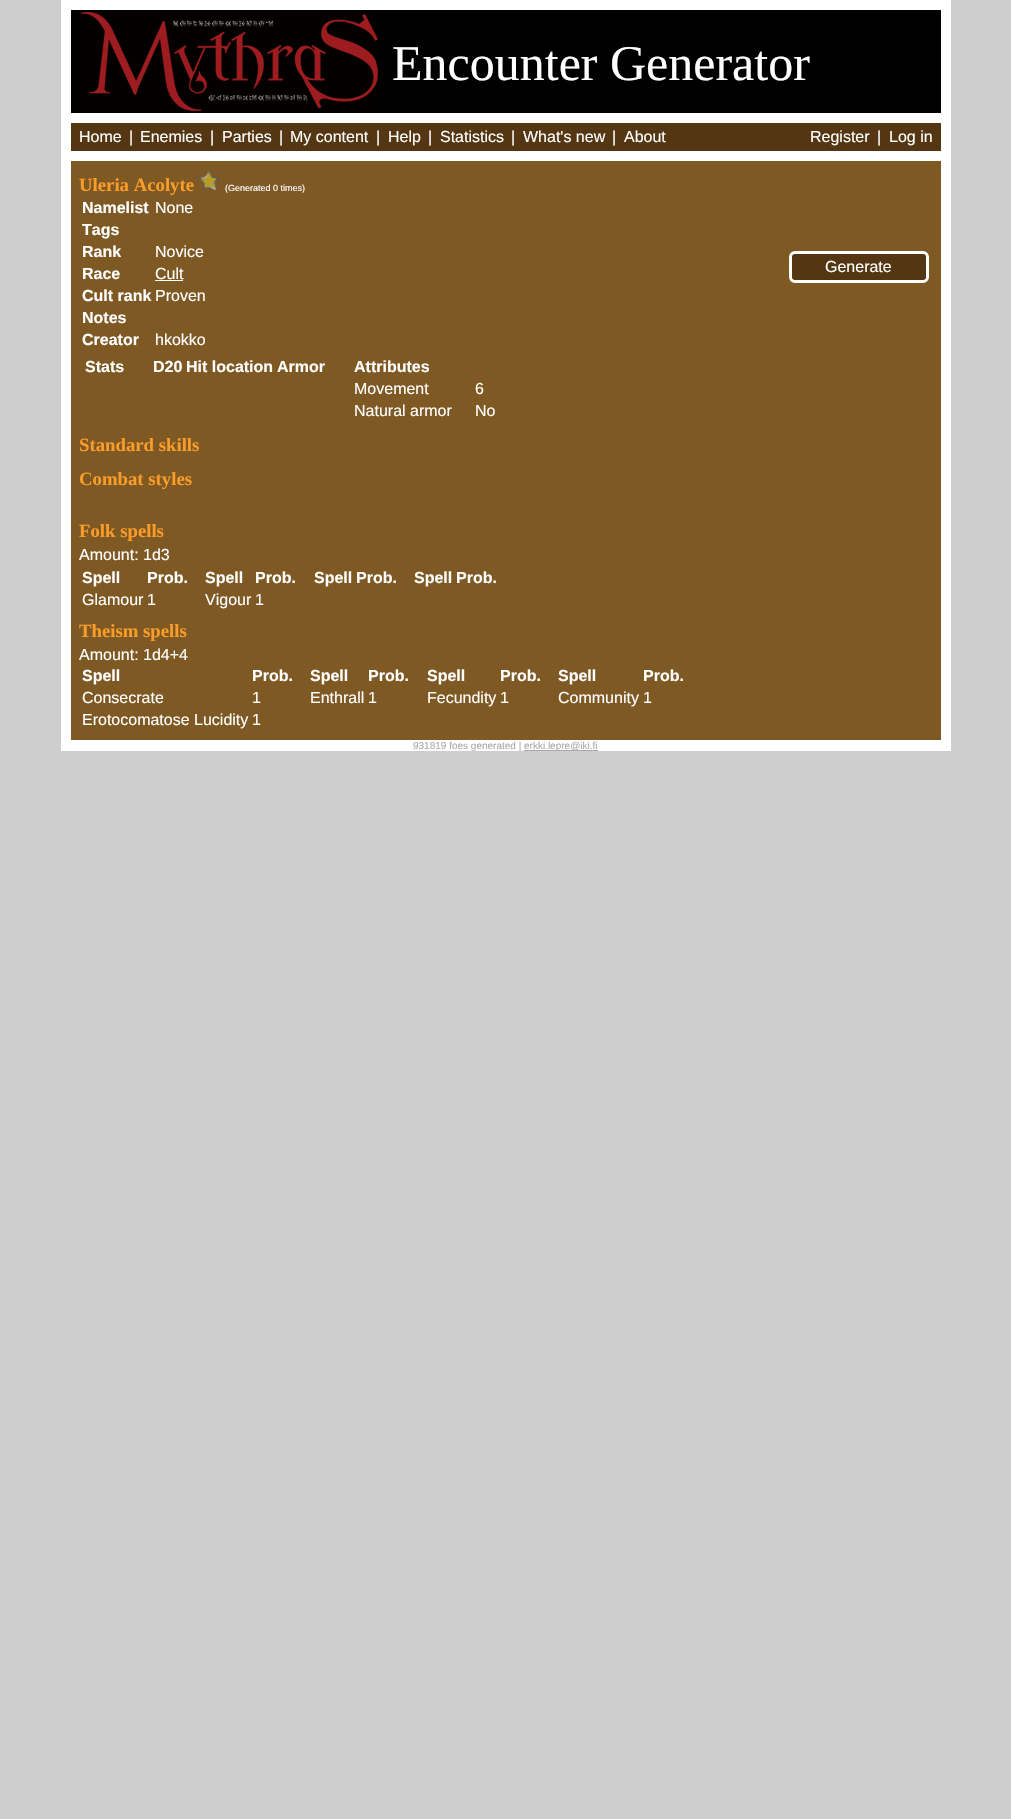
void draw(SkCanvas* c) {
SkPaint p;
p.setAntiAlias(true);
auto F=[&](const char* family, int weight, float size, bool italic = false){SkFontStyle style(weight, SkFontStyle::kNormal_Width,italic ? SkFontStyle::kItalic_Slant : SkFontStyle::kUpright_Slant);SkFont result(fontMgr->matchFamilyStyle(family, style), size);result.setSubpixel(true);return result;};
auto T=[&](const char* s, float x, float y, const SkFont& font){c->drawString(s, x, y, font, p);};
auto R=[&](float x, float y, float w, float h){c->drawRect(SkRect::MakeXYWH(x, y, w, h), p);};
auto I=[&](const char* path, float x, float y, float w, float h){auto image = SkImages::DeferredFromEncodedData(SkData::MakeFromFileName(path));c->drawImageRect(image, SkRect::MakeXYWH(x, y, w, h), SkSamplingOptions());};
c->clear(0xffcecece);
p.setColor(0xffffffff);
R(61,0,890,751);
p.setColor(0xff000000);
R(71,10,870,103);
I("1.png",81,12,297,99);
auto f1 = F("Liberation Serif",400,50);
p.setColor(0xffffffff);
T("Encounter Generator",392,80,f1);
p.setColor(0xff543712);
R(71,123,870,28);
auto f2 = F("Liberation Sans",400,16);
p.setColor(0xffffffff);
T("Home",79,142,f2);
T("|",129,142,f2);
T("Enemies",140,142,f2);
T("|",210,142,f2);
T("Parties",222,142,f2);
T("|",279,142,f2);
T("My content",290,142,f2);
T("|",376,142,f2);
T("Help",388,142,f2);
T("|",428,142,f2);
T("Statistics",440,142,f2);
T("|",511,142,f2);
T("What's new",523,142,f2);
T("|",612,142,f2);
T("About",624,142,f2);
T("Register",810,142,f2);
T("|",877,142,f2);
T("Log in",889,142,f2);
p.setColor(0xff7f5924);
R(71,161,870,579);
auto f3 = F("Liberation Serif",700,18.75);
p.setColor(0xfff99c2a);
T("Uleria Acolyte",79,191,f3);
I("2.png",198,170,22,21);
auto f4 = F("Liberation Sans",400,9);
p.setColor(0xffffffff);
T("(Generated 0 times)",225,191,f4);
auto f5 = F("Liberation Sans",700,16);
T("Namelist",82,213,f5);
T("None",155,213,f2);
T("Tags",82,235,f5);
T("Rank",82,257,f5);
T("Novice",155,257,f2);
T("Race",82,279,f5);
T("Cult",155,279,f2);
R(155,280,28,1);
T("Cult rank",82,301,f5);
T("Proven",155,301,f2);
T("Notes",82,323,f5);
T("Creator",82,345,f5);
T("hkokko",155,345,f2);
p.setColor(0xff543712);
c->drawRoundRect(SkRect::MakeXYWH(790.5,252.5,137,29),4.5,4.5,p);
p.setStroke(true);
p.setStrokeWidth(3);
p.setColor(0xffffffff);
c->drawRoundRect(SkRect::MakeXYWH(790.5,252.5,137,29),4.5,4.5,p);
p.setStroke(false);
T("Generate",825,272,f2);
T("Stats",85,372,f5);
T("D20",153,372,f5);
T("Hit location",186,372,f5);
T("Armor",277,372,f5);
T("Attributes",354,372,f5);
T("Movement",354,394,f2);
T("6",475,394,f2);
T("Natural armor",354,416,f2);
T("No",475,416,f2);
p.setColor(0xfff99c2a);
T("Standard skills",79,451,f3);
T("Combat styles",79,485,f3);
T("Folk spells",79,537,f3);
p.setColor(0xffffffff);
T("Amount: 1d3",79,560,f2);
T("Spell",82,583,f5);
T("Prob.",147,583,f5);
T("Spell",205,583,f5);
T("Prob.",255,583,f5);
T("Spell",314,583,f5);
T("Prob.",356,583,f5);
T("Spell",414,583,f5);
T("Prob.",456,583,f5);
T("Glamour",82,605,f2);
T("1",147,605,f2);
T("Vigour",205,605,f2);
T("1",255,605,f2);
p.setColor(0xfff99c2a);
T("Theism spells",79,637,f3);
p.setColor(0xffffffff);
T("Amount: 1d4+4",79,660,f2);
T("Spell",82,681,f5);
T("Prob.",252,681,f5);
T("Spell",310,681,f5);
T("Prob.",368,681,f5);
T("Spell",427,681,f5);
T("Prob.",500,681,f5);
T("Spell",558,681,f5);
T("Prob.",643,681,f5);
T("Consecrate",82,703,f2);
T("1",252,703,f2);
T("Enthrall",310,703,f2);
T("1",368,703,f2);
T("Fecundity",427,703,f2);
T("1",500,703,f2);
T("Community",558,703,f2);
T("1",643,703,f2);
T("Erotocomatose Lucidity",82,725,f2);
T("1",252,725,f2);
auto f6 = F("Liberation Sans",400,10);
p.setColor(0xffaaaaaa);
T("931819 foes generated |",413,749,f6);
R(524,750,74,1);
T("erkki.lepre@iki.fi",524,749,f6);
}
